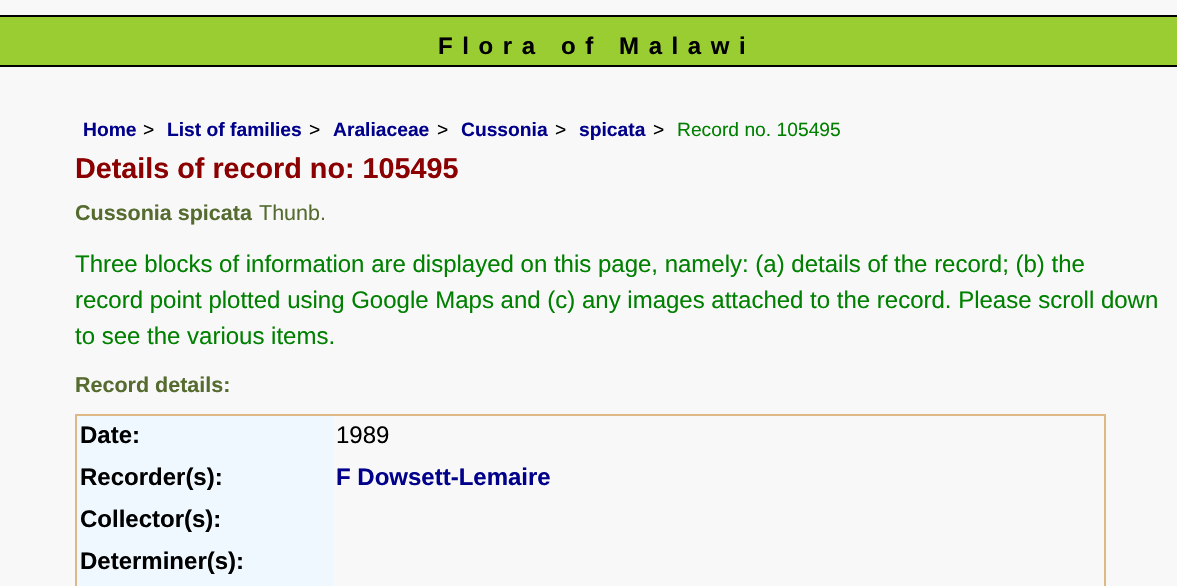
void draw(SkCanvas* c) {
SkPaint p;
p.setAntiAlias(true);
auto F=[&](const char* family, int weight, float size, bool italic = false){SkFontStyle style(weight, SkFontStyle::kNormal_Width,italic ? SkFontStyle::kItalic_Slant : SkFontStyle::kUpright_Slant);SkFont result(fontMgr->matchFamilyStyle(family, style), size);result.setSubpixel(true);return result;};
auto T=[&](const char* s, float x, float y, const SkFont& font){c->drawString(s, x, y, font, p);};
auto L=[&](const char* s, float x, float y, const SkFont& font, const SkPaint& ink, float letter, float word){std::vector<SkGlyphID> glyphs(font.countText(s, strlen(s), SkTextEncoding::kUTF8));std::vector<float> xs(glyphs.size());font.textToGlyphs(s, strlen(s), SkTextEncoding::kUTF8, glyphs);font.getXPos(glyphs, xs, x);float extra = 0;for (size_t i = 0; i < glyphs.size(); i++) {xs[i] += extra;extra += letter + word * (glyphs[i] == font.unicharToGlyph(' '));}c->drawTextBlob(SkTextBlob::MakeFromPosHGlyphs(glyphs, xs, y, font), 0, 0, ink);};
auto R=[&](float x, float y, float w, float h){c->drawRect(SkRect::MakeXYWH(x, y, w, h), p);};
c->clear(0xfff8f8f8);
p.setColor(0xff9acd32);
R(0,17,1177,48);
p.setColor(0xff000000);
R(0,15,1177,2);
R(0,65,1177,2);
auto f1 = F("Liberation Sans",700,24);
L("Flora of Malawi",438,54,f1,p,9.6,0);
auto f2 = F("Liberation Sans",700,19.25);
p.setColor(0xff00008b);
T("Home",83,136,f2);
auto f3 = F("Liberation Sans",400,19.25);
p.setColor(0xff000000);
T(">",143,136,f3);
p.setColor(0xff00008b);
T("List of families",167,136,f2);
p.setColor(0xff000000);
T(">",309,136,f3);
p.setColor(0xff00008b);
T("Araliaceae",333,136,f2);
p.setColor(0xff000000);
T(">",437,136,f3);
p.setColor(0xff00008b);
T("Cussonia",461,136,f2);
p.setColor(0xff000000);
T(">",555,136,f3);
p.setColor(0xff00008b);
T("spicata",579,136,f2);
p.setColor(0xff000000);
T(">",653,136,f3);
p.setColor(0xff008000);
T("Record no. 105495",677,136,f3);
auto f4 = F("Liberation Sans",700,28.75);
p.setColor(0xff8b0000);
T("Details of record no: 105495",75,178,f4);
auto f5 = F("Liberation Sans",700,21.5);
p.setColor(0xff556b2f);
T("Cussonia spicata",75,220,f5);
auto f6 = F("Liberation Sans",400,21.5);
T("Thunb.",259,220,f6);
auto f7 = F("Liberation Sans",400,24);
p.setColor(0xff008000);
T("Three blocks of information are displayed on this page, namely: (a) details of the record; (b) the",75,272,f7);
T("record point plotted using Google Maps and (c) any images attached to the record. Please scroll down",75,308,f7);
T("to see the various items.",75,344,f7);
p.setColor(0xff556b2f);
T("Record details:",75,392,f5);
p.setColor(0xffdeb887);
R(75,414,1031,2);
R(1104,414,2,172);
R(75,414,2,172);
p.setColor(0xfff0f8ff);
R(77,416,256,170);
p.setColor(0xff000000);
T("Date:",80,443,f1);
T("1989",336,443,f7);
T("Recorder(s):",80,485,f1);
p.setColor(0xff00008b);
T("F Dowsett-Lemaire",336,485,f1);
p.setColor(0xff000000);
T("Collector(s):",80,527,f1);
T("Determiner(s):",80,569,f1);
}
